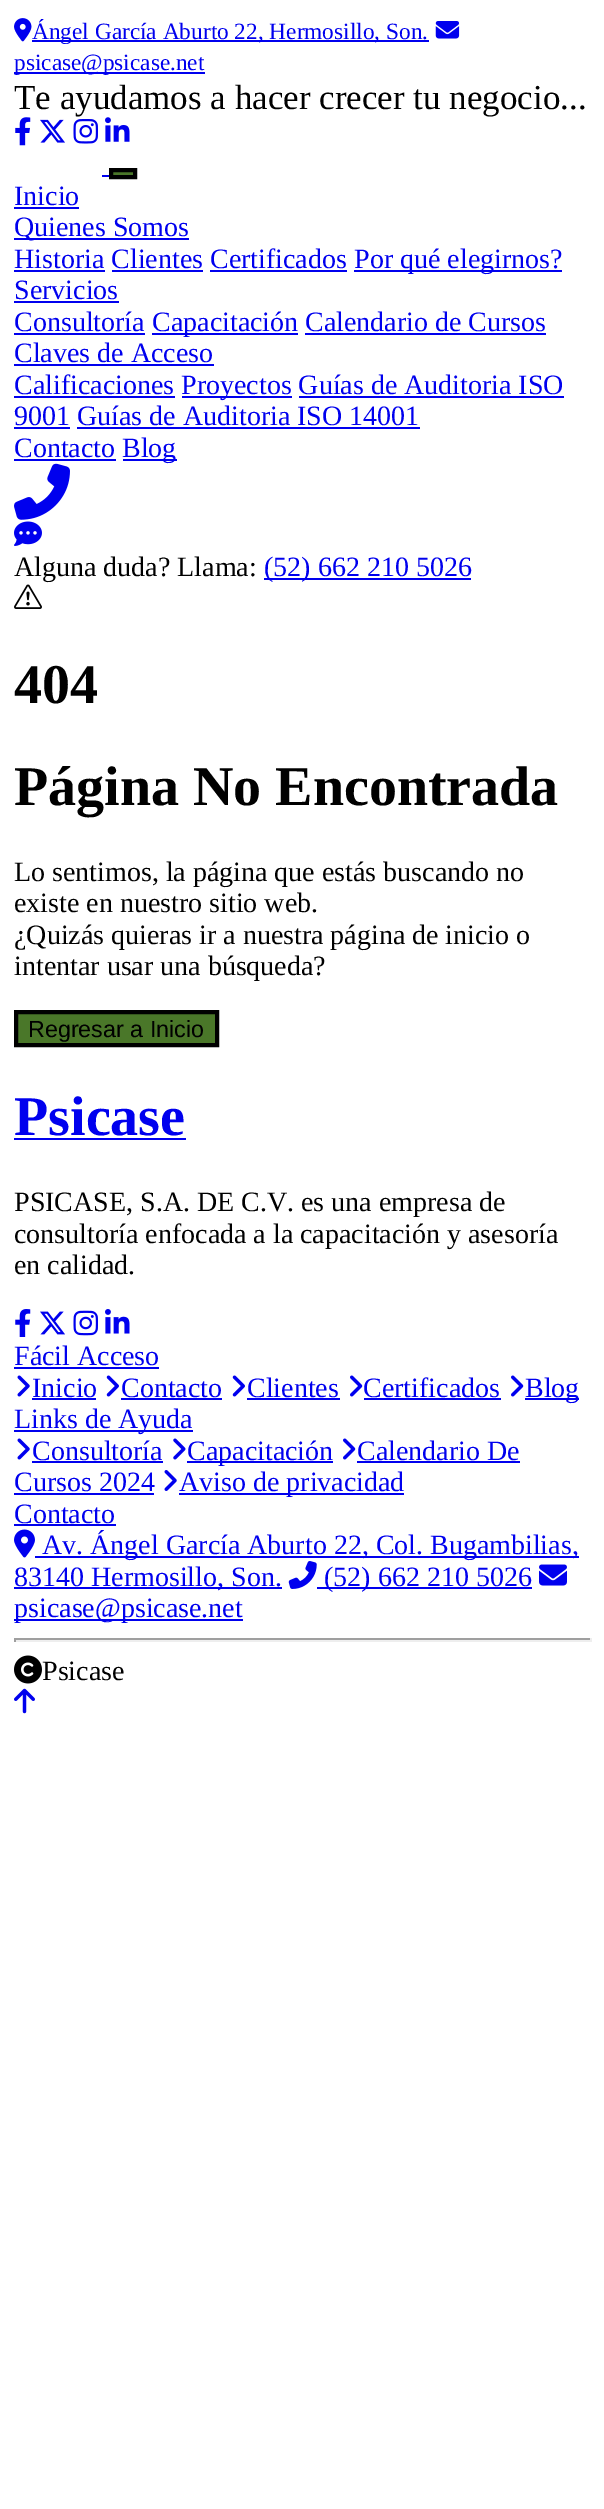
%!PS
<< /PageSize [604 2509] >> setpagedevice
/rgb { 3 { 255 div 3 1 roll } repeat setrgbcolor } def
/font { [ exch dup neg 0 0 3 -1 roll 0 0 ] selectfont } def
/picture { 5 dict begin { /h /w /y /x /name } { exch def } forall
  gsave x y translate w h scale
  w h 8 [w 0 0 h 0 0] name (r) file false 3 colorimage grestore end } def
0 2509 translate 1 -1 scale
4 setmiterlimit
255 255 255 rgb
0 0 604 2509 rectfill
(img/1.rgb) 14 18 18 24 picture
0 0 238 rgb
32 40 397 2 rectfill
(img/2.rgb) 435 21 25 18 picture
14 72 191 2 rectfill
(img/3.rgb) 15 117 16 29 picture
(img/4.rgb) 40 119 25 24 picture
(img/5.rgb) 73 119 25 25 picture
(img/6.rgb) 105 117 25 25 picture
102 175 7 2 rectfill
74 119 41 rgb
111 170 moveto 135 170 lineto 135 177 lineto 111 177 lineto closepath gsave fill grestore
0 0 0 rgb
4 setlinewidth
stroke
[
  [14 207 65 2 0 0 238]
  [14 238 175 2 0 0 238]
  [14 270 91 2 0 0 238]
  [354 270 208 2 0 0 238]
  [112 270 91 2 0 0 238]
  [210 270 137 2 0 0 238]
  [14 301 105 2 0 0 238]
  [14 333 131 2 0 0 238]
  [152 333 146 2 0 0 238]
  [305 333 241 2 0 0 238]
  [14 364 200 2 0 0 238]
  [14 396 161 2 0 0 238]
  [182 396 110 2 0 0 238]
  [299 396 265 2 0 0 238]
  [14 427 56 2 0 0 238]
  [77 427 343 2 0 0 238]
  [14 459 102 2 0 0 238]
  [123 459 54 2 0 0 238]
] { aload pop rgb rectfill } forall
(img/7.rgb) 14 463 56 57 picture
(img/8.rgb) 14 521 28 25 picture
264 578 207 2 rectfill
(img/9.rgb) 14 584 28 25 picture
74 119 41 rgb
16 1012 moveto 217 1012 lineto 217 1045 lineto 16 1045 lineto closepath gsave fill grestore
0 0 0 rgb
stroke
0 0 238 rgb
14 1138 172 2 rectfill
(img/10.rgb) 15 1309 16 28 picture
(img/11.rgb) 40 1311 25 24 picture
(img/12.rgb) 73 1310 25 26 picture
(img/13.rgb) 105 1309 25 25 picture
14 1367 145 2 rectfill
(img/14.rgb) 17 1375 13 22 picture
32 1398 64 2 rectfill
(img/15.rgb) 106 1375 13 22 picture
121 1398 101 2 rectfill
(img/15.rgb) 232 1375 13 22 picture
247 1398 93 2 rectfill
(img/16.rgb) 350 1375 13 22 picture
364 1398 137 2 rectfill
(img/16.rgb) 511 1375 13 22 picture
525 1398 54 2 rectfill
14 1430 179 2 rectfill
(img/16.rgb) 343 1438 13 22 picture
357 1461 163 2 rectfill
14 1493 140 2 rectfill
(img/14.rgb) 17 1438 13 22 picture
32 1461 131 2 rectfill
(img/17.rgb) 173 1438 13 22 picture
187 1461 146 2 rectfill
(img/18.rgb) 164 1470 13 21 picture
179 1493 225 2 rectfill
14 1524 102 2 rectfill
(img/19.rgb) 14 1529 21 29 picture
35 1556 544 2 rectfill
14 1587 268 2 rectfill
(img/20.rgb) 288 1561 29 28 picture
317 1587 215 2 rectfill
(img/21.rgb) 539 1564 28 22 picture
[
  [14 1619 229 2 0 0 238]
  [14 1638 578 2 159 159 159]
  [590 1638 2 4 238 238 238]
  [14 1640 578 2 238 238 238]
  [14 1638 2 4 159 159 159]
] { aload pop rgb rectfill } forall
(img/22.rgb) 14 1655 28 29 picture
(img/23.rgb) 14 1688 21 26 picture
/LiberationSerif-Regular 23.3 font
0 0 238 rgb
32 39 moveto (Ángel García Aburto 22, Hermosillo, Son.) show
14 70 moveto (psicase@psicase.net) show
/LiberationSerif-Regular 35 font
0 0 0 rgb
14 109 moveto (Te ayudamos a hacer crecer tu negocio...) show
/LiberationSerif-Regular 28 font
0 0 238 rgb
[
  [(Inicio) 14 205]
  [(Quienes Somos) 14 236]
  [(Historia Clientes Certificados) 14 268]
  [(Por qué elegirnos?) 354 268]
  [(Servicios) 14 299]
  [(Consultoría) 14 331]
  [(Capacitación Calendario de Cursos) 152 331]
  [(Claves de Acceso) 14 362]
  [(Calificaciones) 14 394]
  [(Proyectos Guías de Auditoria ISO) 181 394]
  [(9001 Guías de Auditoria ISO 14001) 14 425]
  [(Contacto) 14 457]
  [(Blog) 122 457]
] { aload pop moveto show } forall
0 0 0 rgb
14 576 moveto (Alguna duda? Llama:) show
0 0 238 rgb
264 576 moveto (\(52\) 662 210 5026) show
/LiberationSerif-Bold 56 font
0 0 0 rgb
14 703 moveto (404) show
14 805 moveto (Página No Encontrada) show
/LiberationSerif-Regular 28 font
[
  [(Lo sentimos, la página que estás buscando no) 14 881]
  [(existe en nuestro sitio web.) 14 912]
  [(¿Quizás quieras ir a nuestra página de inicio o) 14 944]
  [(intentar usar una búsqueda?) 14 975]
] { aload pop moveto show } forall
/LiberationSans-Regular 23.3 font
28 1037 moveto (Regresar a Inicio) show
/LiberationSerif-Bold 56 font
0 0 238 rgb
14 1135 moveto (Psicase) show
/LiberationSerif-Regular 28 font
0 0 0 rgb
[
  [(PSICASE, S.A. DE C.V. es una empresa de) 14 1211]
  [(consultoría enfocada a la capacitación y asesoría) 14 1243]
  [(en calidad.) 14 1274]
] { aload pop moveto show } forall
0 0 238 rgb
[
  [(Fácil Acceso) 14 1365]
  [(Inicio) 32 1397]
  [(Contacto) 121 1397]
  [(Clientes) 247 1397]
  [(Certificados) 363 1397]
  [(Blog) 525 1397]
  [(Links de Ayuda) 14 1428]
  [(Calendario De) 357 1460]
  [(Cursos 2024) 14 1491]
  [(Consultoría) 32 1460]
  [(Capacitación) 187 1460]
  [(Aviso de privacidad) 179 1491]
  [(Contacto) 14 1523]
  [(Av. Ángel García Aburto 22, Col. Bugambilias,) 42 1554]
  [(83140 Hermosillo, Son.) 14 1586]
  [(\(52\) 662 210 5026) 324 1586]
  [(psicase@psicase.net) 14 1617]
] { aload pop moveto show } forall
0 0 0 rgb
42 1680 moveto (Psicase) show
showpage
